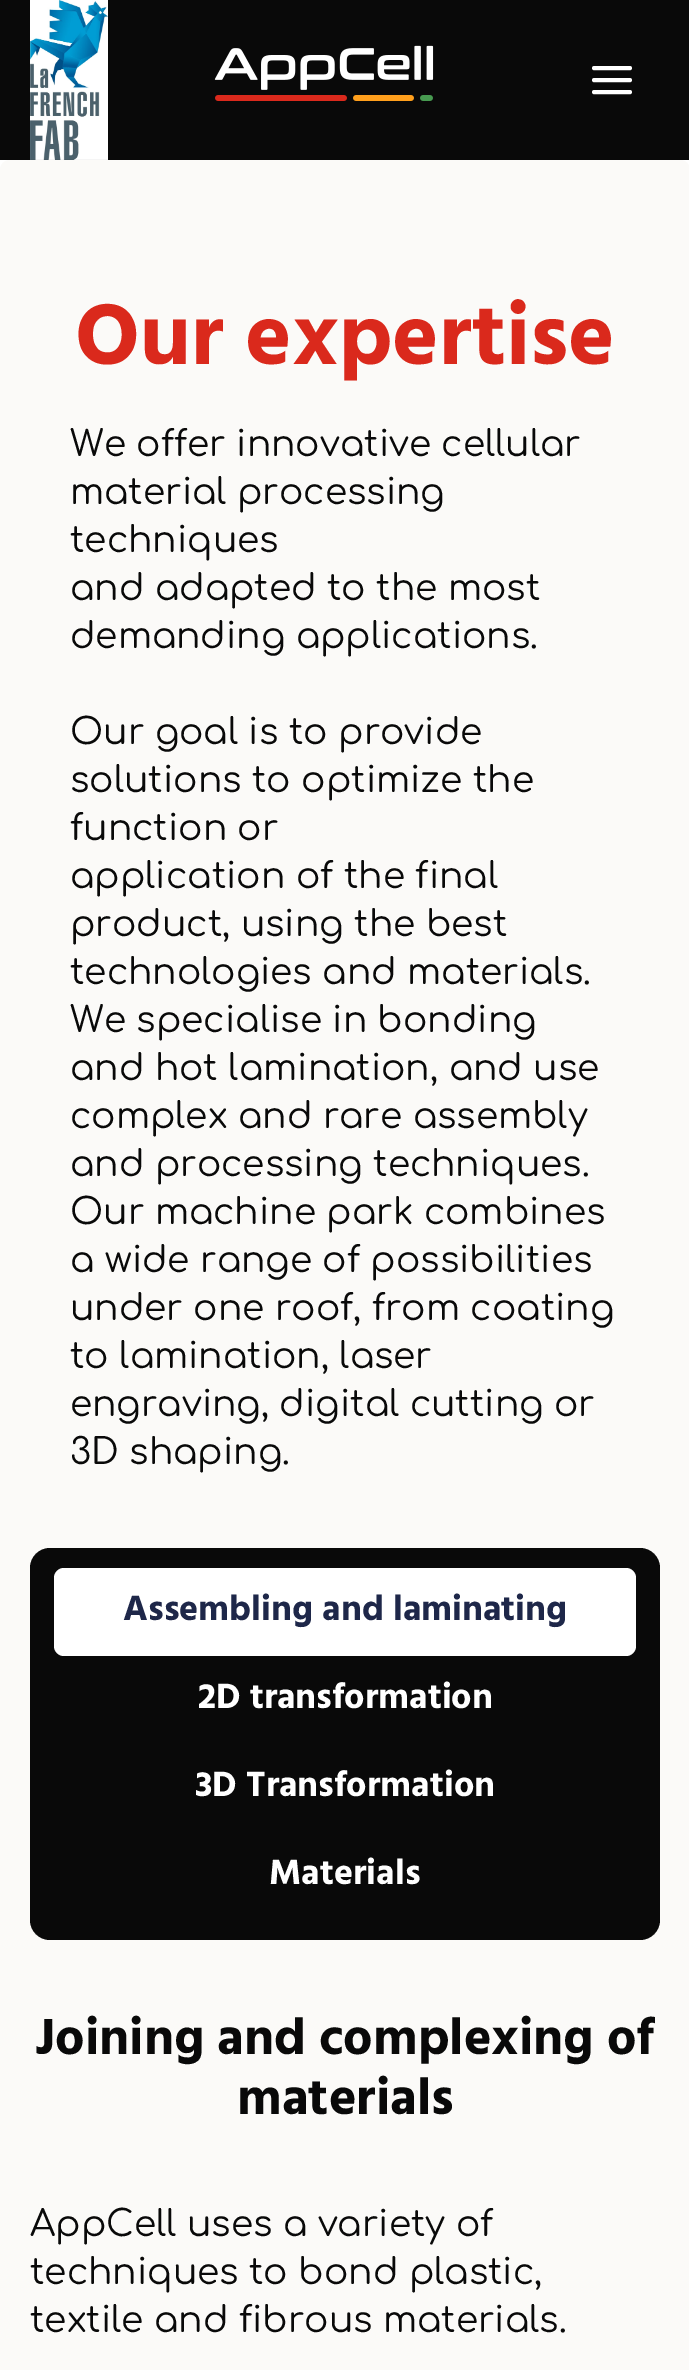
%!PS
<< /PageSize [689 2370] >> setpagedevice
/rgb { 3 { 255 div 3 1 roll } repeat setrgbcolor } def
/font { [ exch dup neg 0 0 3 -1 roll 0 0 ] selectfont } def
/roundrect { 5 dict begin { /r /h /w /y /x } { exch def } forall
  x r add y moveto x w add y 2 copy h add r arct x w add y h add x 1 index r arct
  x y h add x y r arct x y 2 copy exch w add exch r arct closepath end } def
/picture { 5 dict begin { /h /w /y /x /name } { exch def } forall
  gsave x y translate w h scale
  w h 8 [w 0 0 h 0 0] name (r) file false 3 colorimage grestore end } def
0 2370 translate 1 -1 scale
4 setmiterlimit
255 255 255 rgb
0 0 689 2370 rectfill
9 9 9 rgb
0 0 689 160 rectfill
(img/1.rgb) 30 0 78 160 picture
(img/2.rgb) 214 45 220 56 picture
255 255 255 rgb
4 setlinewidth
1 setlinecap
1 setlinejoin
594 80 moveto 630 80 lineto 594 68 moveto 630 68 lineto 594 92 moveto 630 92 lineto stroke
251 250 248 rgb
10 160 moveto 680 160 lineto 685.5 160 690 164.5 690 170 curveto 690 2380 lineto 0 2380 lineto 0 170 lineto 0 164.5 4.5 160 10 160 curveto closepath fill
9 9 9 rgb
30 1548 630 392 20 roundrect fill
255 255 255 rgb
54 1568 582 88 10 roundrect fill
/Hind-Bold 88 font
218 41 28 rgb
75 364 moveto (Our expertise) show
/Comfortaa-Regular 36 font
9 9 9 rgb
[
  [(We offer innovative cellular) 70 456]
  [(material processing) 70 504]
  [(techniques) 70 552]
  [(and adapted to the most) 70 600]
  [(demanding applications.) 70 648]
  [(Our goal is to provide) 70 744]
  [(solutions to optimize the) 70 792]
  [(function or) 70 840]
  [(application of the final) 70 888]
  [(product, using the best) 70 936]
  [(technologies and materials.) 70 984]
  [(We specialise in bonding) 70 1032]
  [(and hot lamination, and use) 70 1080]
  [(complex and rare assembly) 70 1128]
  [(and processing techniques.) 70 1176]
  [(Our machine park combines) 70 1224]
  [(a wide range of possibilities) 70 1272]
  [(under one roof, from coating) 70 1320]
  [(to lamination, laser) 70 1368]
  [(engraving, digital cutting or) 70 1416]
  [(3D shaping.) 70 1464]
] { aload pop moveto show } forall
/Hind-Bold 36 font
30 39 73 rgb
123 1620 moveto (Assembling and laminating) show
255 255 255 rgb
[
  [(2D transformation) 198 1708]
  [(3D Transformation) 195 1796]
  [(Materials) 269 1884]
] { aload pop moveto show } forall
/Hind-Bold 52 font
9 9 9 rgb
35 2054 moveto (Joining and complexing of) show
237 2114 moveto (materials) show
/Comfortaa-Regular 36 font
[
  [(AppCell uses a variety of) 30 2236]
  [(techniques to bond plastic,) 30 2284]
  [(textile and fibrous materials.) 30 2332]
] { aload pop moveto show } forall
showpage
